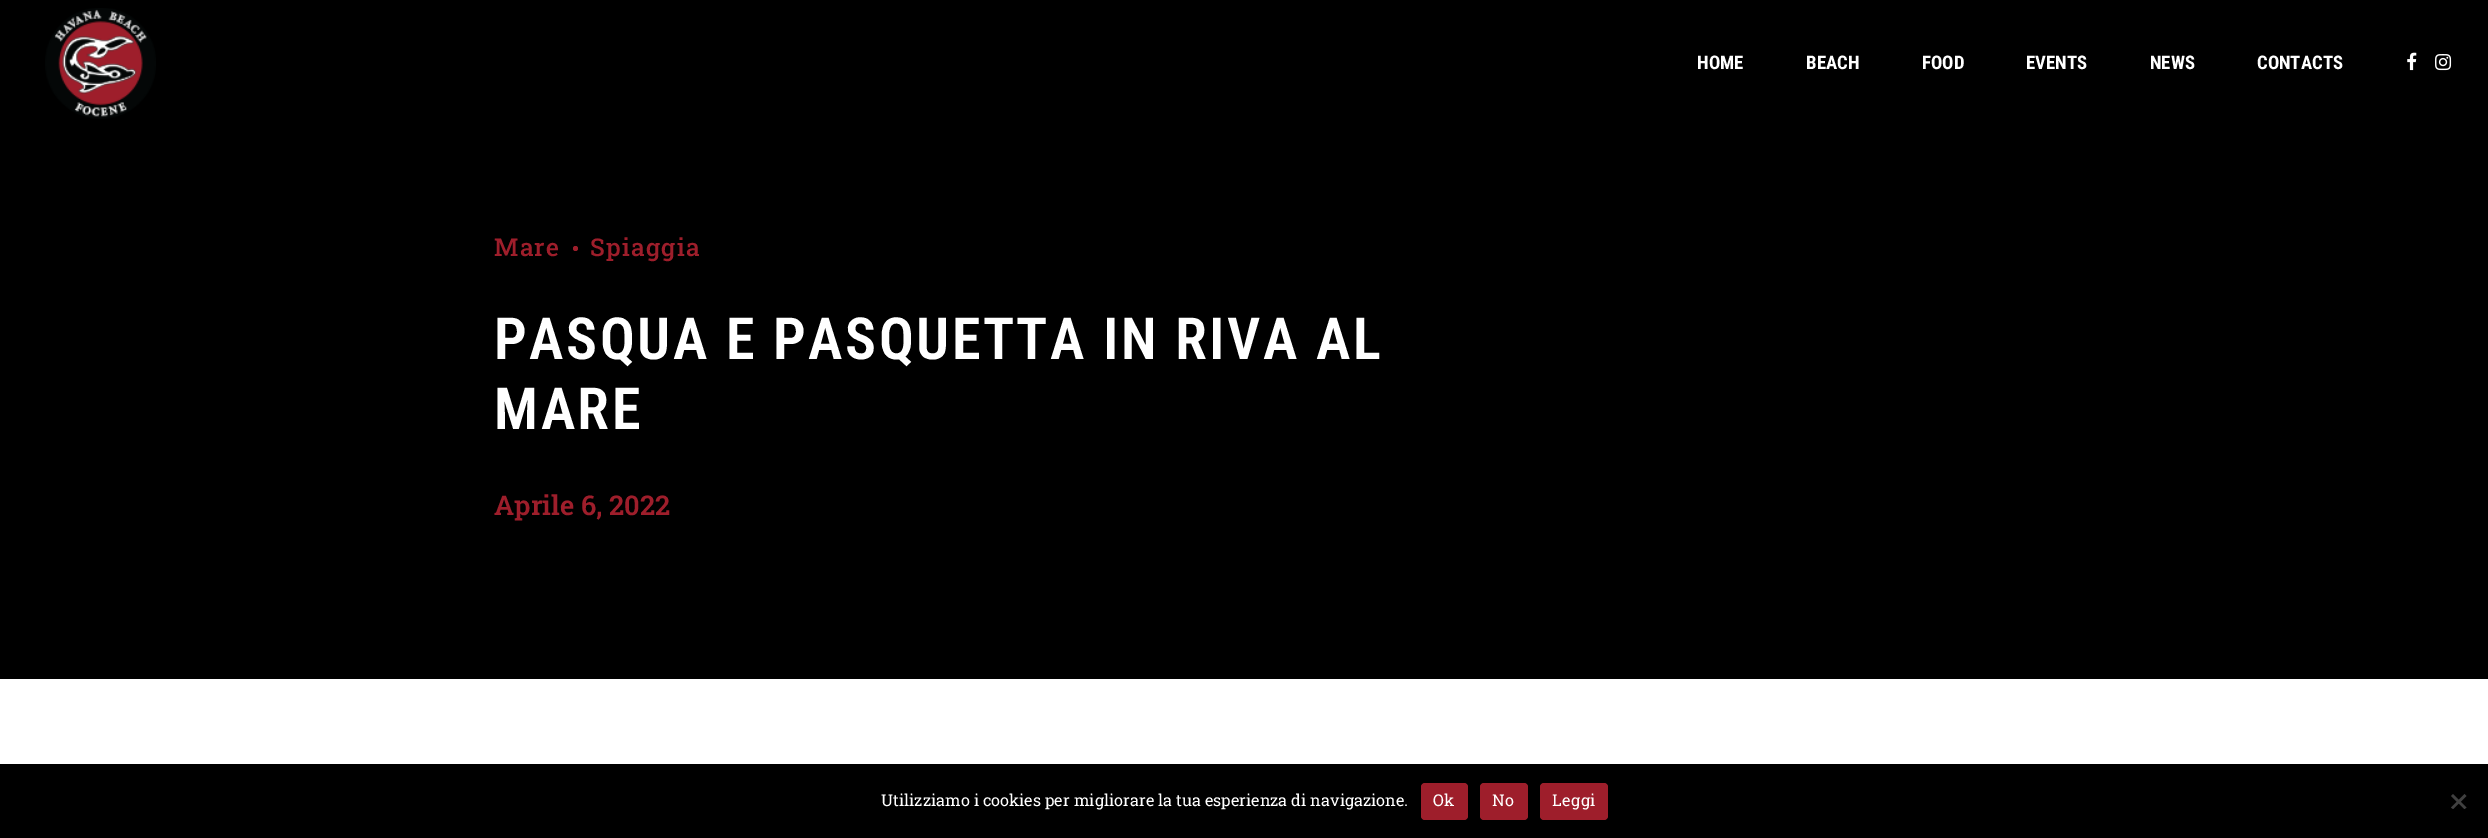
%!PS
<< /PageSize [2488 838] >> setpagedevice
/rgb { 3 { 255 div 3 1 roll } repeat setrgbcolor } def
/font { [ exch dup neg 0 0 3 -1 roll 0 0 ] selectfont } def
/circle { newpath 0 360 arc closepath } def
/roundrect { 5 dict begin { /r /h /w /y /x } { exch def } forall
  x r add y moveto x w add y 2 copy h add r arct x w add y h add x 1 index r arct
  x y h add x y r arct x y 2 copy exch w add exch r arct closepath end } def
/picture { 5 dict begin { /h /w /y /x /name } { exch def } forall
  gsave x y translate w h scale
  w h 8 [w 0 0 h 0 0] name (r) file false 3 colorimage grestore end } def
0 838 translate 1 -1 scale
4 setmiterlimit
255 255 255 rgb
0 0 2488 838 rectfill
0 0 0 rgb
0 0 2488 679 rectfill
(img/1.rgb) 45 8 111 111 picture
(img/2.rgb) 2407 52 10 19 picture
(img/3.rgb) 2435 54 17 17 picture
158 30 43 rgb
575.5 248.5 2.5 circle fill
0 0 0 rgb
0 764 2488 74 rectfill
158 30 43 rgb
1421 783 47 37 4 roundrect fill
1480 783 48 37 4 roundrect fill
1540 783 68 37 4 roundrect fill
64 64 64 rgb
2464.5 794 moveto 2466.5 796 lineto 2453 809 lineto 2451 807.5 lineto closepath fill
2451 796 moveto 2453 794 lineto 2466.5 807.5 lineto 2464.5 809 lineto closepath fill
/RobotoCondensed-Bold 18.75 font
255 255 255 rgb
[
  [(HOME) 1697 69]
  [(BEACH) 1806 69]
  [(FOOD) 1922 69]
  [(EVENTS) 2026 69]
  [(NEWS) 2150 69]
  [(CONTACTS) 2257 69]
] { aload pop moveto show } forall
/RobotoSlab-Medium 24.5 font
158 30 43 rgb
494 256 moveto 1.25 0 (Mare) ashow
590 256 moveto 1.25 0 (Spiaggia) ashow
/RobotoCondensed-SemiBold 58.1 font
255 255 255 rgb
494 359 moveto 2.5 0 (PASQUA E PASQUETTA IN RIVA AL) ashow
494 429 moveto 2.5 0 (MARE) ashow
/RobotoSlab-SemiBold 27.25 font
158 30 43 rgb
494 515 moveto (Aprile 6, 2022) show
/RobotoSlab-Regular 16.25 font
255 255 255 rgb
881 806 moveto (Utilizziamo i cookies per migliorare la tua esperienza di navigazione.) show
1433 806 moveto 0.5 0 (Ok) ashow
1492 806 moveto 0.5 0 (No) ashow
1552 806 moveto 0.5 0 (Leggi) ashow
showpage
